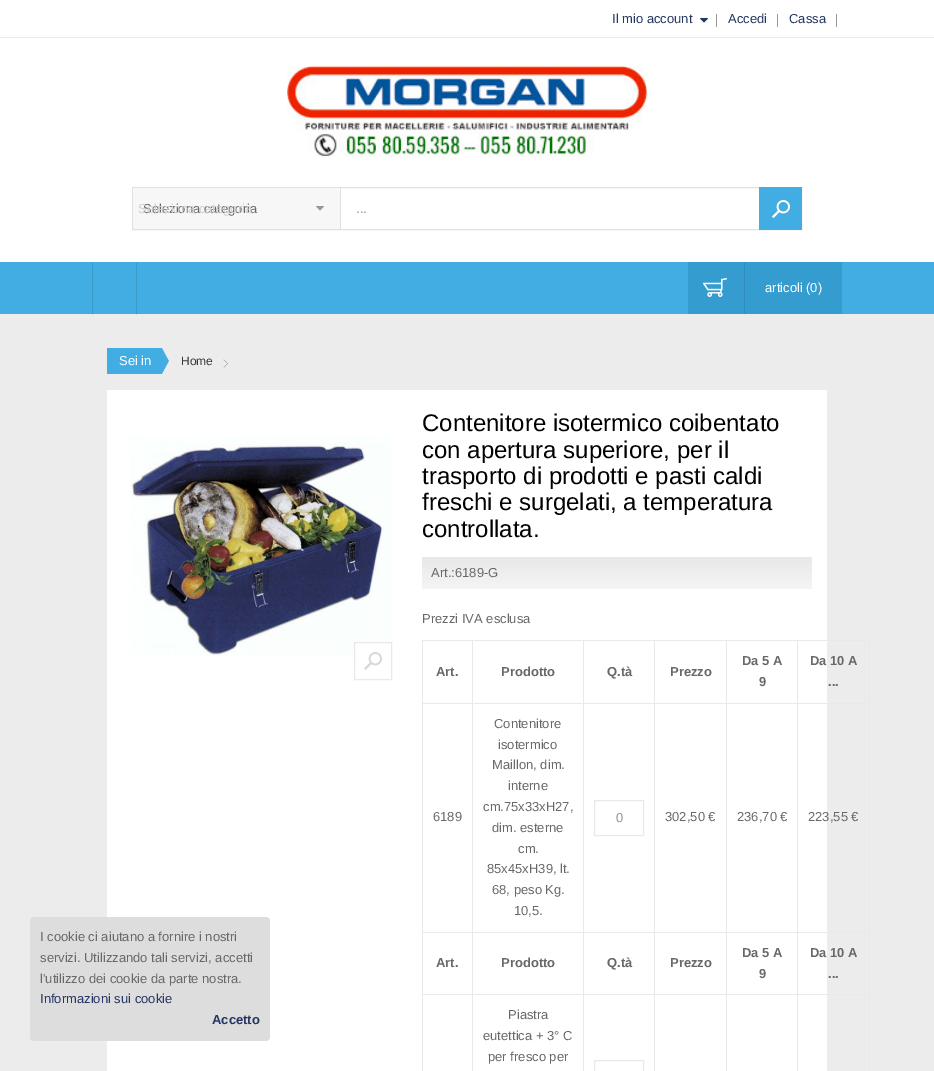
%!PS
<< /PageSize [934 1071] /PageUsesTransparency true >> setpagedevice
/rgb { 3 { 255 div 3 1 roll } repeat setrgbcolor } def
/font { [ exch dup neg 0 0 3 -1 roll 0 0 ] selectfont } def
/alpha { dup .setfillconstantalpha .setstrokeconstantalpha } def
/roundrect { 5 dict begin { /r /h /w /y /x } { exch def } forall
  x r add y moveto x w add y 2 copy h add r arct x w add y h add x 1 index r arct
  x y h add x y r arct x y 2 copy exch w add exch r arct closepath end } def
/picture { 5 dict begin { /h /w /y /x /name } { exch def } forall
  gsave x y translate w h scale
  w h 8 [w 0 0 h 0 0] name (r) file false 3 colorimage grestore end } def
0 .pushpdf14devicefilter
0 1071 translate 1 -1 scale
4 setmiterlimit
237 236 236 rgb
0 0 934 1071 rectfill
255 255 255 rgb
0 0 934 262 rectfill
234 234 234 rgb
0 37 934 1 rectfill
(img/1.rgb) 700 18 8 5 picture
[
  [716 14 1 13 153 153 153]
  [777 14 1 13 153 153 153]
  [836 14 1 13 153 153 153]
] { aload pop rgb rectfill } forall
(img/2.rgb) 287 66 360 91 picture
225 225 225 rgb
132.5 187.5 669 42 rectstroke
247 247 247 rgb
133 188 207 41 rectfill
225 225 225 rgb
340 188 1 41 rectfill
(img/3.rgb) 316 206 8 5 picture
65 173 226 rgb
759 187 43 43 rectfill
(img/4.rgb) 772 200 18 18 picture
0 262 934 52 rectfill
53 156 207 rgb
688 262 154 52 rectfill
(img/5.rgb) 703 278 24 19 picture
48 140 186 rgb
744 262 1 52 rectfill
0.1 alpha
0 0 0 rgb
137 262 moveto 137 315 lineto 136 314 lineto 136 263 lineto closepath 92 315 moveto 92 262 lineto 93 263 lineto 93 314 lineto closepath fill
1 alpha
65 173 226 rgb
107 348 53 26 rectfill
(img/6.rgb) 160 348 9 26 picture
(img/7.rgb) 223 359 5 9 picture
255 255 255 rgb
107 390 720 681 rectfill
(img/8.rgb) 130 436 262 221 picture
355 643 36 14 rectfill
(img/9.rgb) 364 652 18 18 picture
233 233 233 rgb
354.5 642.5 37 37 rectstroke
gsave 422 557 390 32 3 roundrect clip newpath
<< /ShadingType 2 /ColorSpace /DeviceRGB /Coords [617 557 617 589] /Extend [true true] /Function << /FunctionType 2 /Domain [0 1] /C0 [0.91 0.91 0.91] /C1 [0.961 0.961 0.961] /N 1 >> >> shfill grestore
[
  [422 640 448 1 233 233 233]
  [869 640 1 64 233 233 233]
  [422 703 448 1 233 233 233]
  [422 932 448 1 233 233 233]
  [869 932 1 63 233 233 233]
  [422 994 448 1 233 233 233]
  [422 932 1 139 233 233 233]
  [422 640 1 293 233 233 233]
  [869 703 1 230 233 233 233]
] { aload pop rgb rectfill } forall
594.5 800.5 49 35 rectstroke
[
  [869 994 1 77 233 233 233]
  [472 640 1 431 233 233 233]
  [583 640 1 431 233 233 233]
] { aload pop rgb rectfill } forall
594.5 1060.5 49 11 rectstroke
[
  [654 640 1 431 233 233 233]
  [726 640 1 431 233 233 233]
  [797 640 1 431 233 233 233]
] { aload pop rgb rectfill } forall
221 221 221 rgb
30 917 240 124 4 roundrect fill
/LiberationSans-Regular 13 font
38 54 99 rgb
[
  [(Il mio account) 612 23]
  [(Accedi) 728 23]
  [(Cassa) 789 23]
] { aload pop moveto show } forall
104 104 104 rgb
143 213 moveto (Seleziona categoria) show
207 207 207 rgb
138 213 moveto (Seleziona categoria) show
144 144 144 rgb
356 213 moveto (...) show
255 255 255 rgb
765 292 moveto (articoli \(0\)) show
119 365 moveto (Sei in) show
/LiberationSans-Regular 12 font
57 57 57 rgb
181 365 moveto (Home) show
/LiberationSans-Regular 24 font
0 0 0 rgb
[
  [(Contenitore isotermico coibentato) 422 431]
  [(con apertura superiore, per il) 422 458]
  [(trasporto di prodotti e pasti caldi) 422 484]
  [(freschi e surgelati, a temperatura) 422 510]
  [(controllata.) 422 537]
] { aload pop moveto show } forall
/LiberationSans-Regular 13 font
104 104 104 rgb
431 577 moveto (Art.:6189-G) show
422 623 moveto (Prezzi IVA esclusa) show
/LiberationSans-Bold 13 font
[
  [(Art.) 436 676]
  [(Prodotto) 501 676]
  [(Q.tà) 607 676]
  [(Prezzo) 670 676]
  [(Da 5 A) 742 665]
  [(9) 759 686]
  [(Da 10 A) 810 665]
  [(...) 828 686]
] { aload pop moveto show } forall
/LiberationSans-Regular 13 font
[
  [(6189) 433 821]
  [(Contenitore) 494 728]
  [(isotermico) 498 749]
  [(Maillon, dim.) 492 769]
  [(interne) 508 790]
  [(cm.75x33xH27,) 483 811]
  [(dim. esterne) 492 832]
  [(cm.) 518 853]
  [(85x45xH39, lt.) 487 873]
  [(68, peso Kg.) 492 894]
  [(10,5.) 514 915]
] { aload pop moveto show } forall
144 144 144 rgb
616 822 moveto (0) show
104 104 104 rgb
[
  [(302,50 €) 665 821]
  [(236,70 €) 737 821]
  [(223,55 €) 808 821]
] { aload pop moveto show } forall
/LiberationSans-Bold 13 font
[
  [(Art.) 436 967]
  [(Prodotto) 501 967]
  [(Q.tà) 607 967]
  [(Prezzo) 670 967]
  [(Da 5 A) 742 957]
  [(9) 759 978]
  [(Da 10 A) 810 957]
  [(...) 828 978]
] { aload pop moveto show } forall
/LiberationSans-Regular 13 font
[
  [(Piastra) 508 1019]
  [(eutettica + 3° C) 483 1040]
  [(per fresco per) 488 1061]
  [(I cookie ci aiutano a fornire i nostri) 40 941]
  [(servizi. Utilizzando tali servizi, accetti) 40 962]
  [(l'utilizzo dei cookie da parte nostra.) 40 983]
] { aload pop moveto show } forall
38 54 99 rgb
40 1003 moveto (Informazioni sui cookie) show
/LiberationSans-Bold 13 font
212 1024 moveto (Accetto) show
.poppdf14devicefilter showpage
